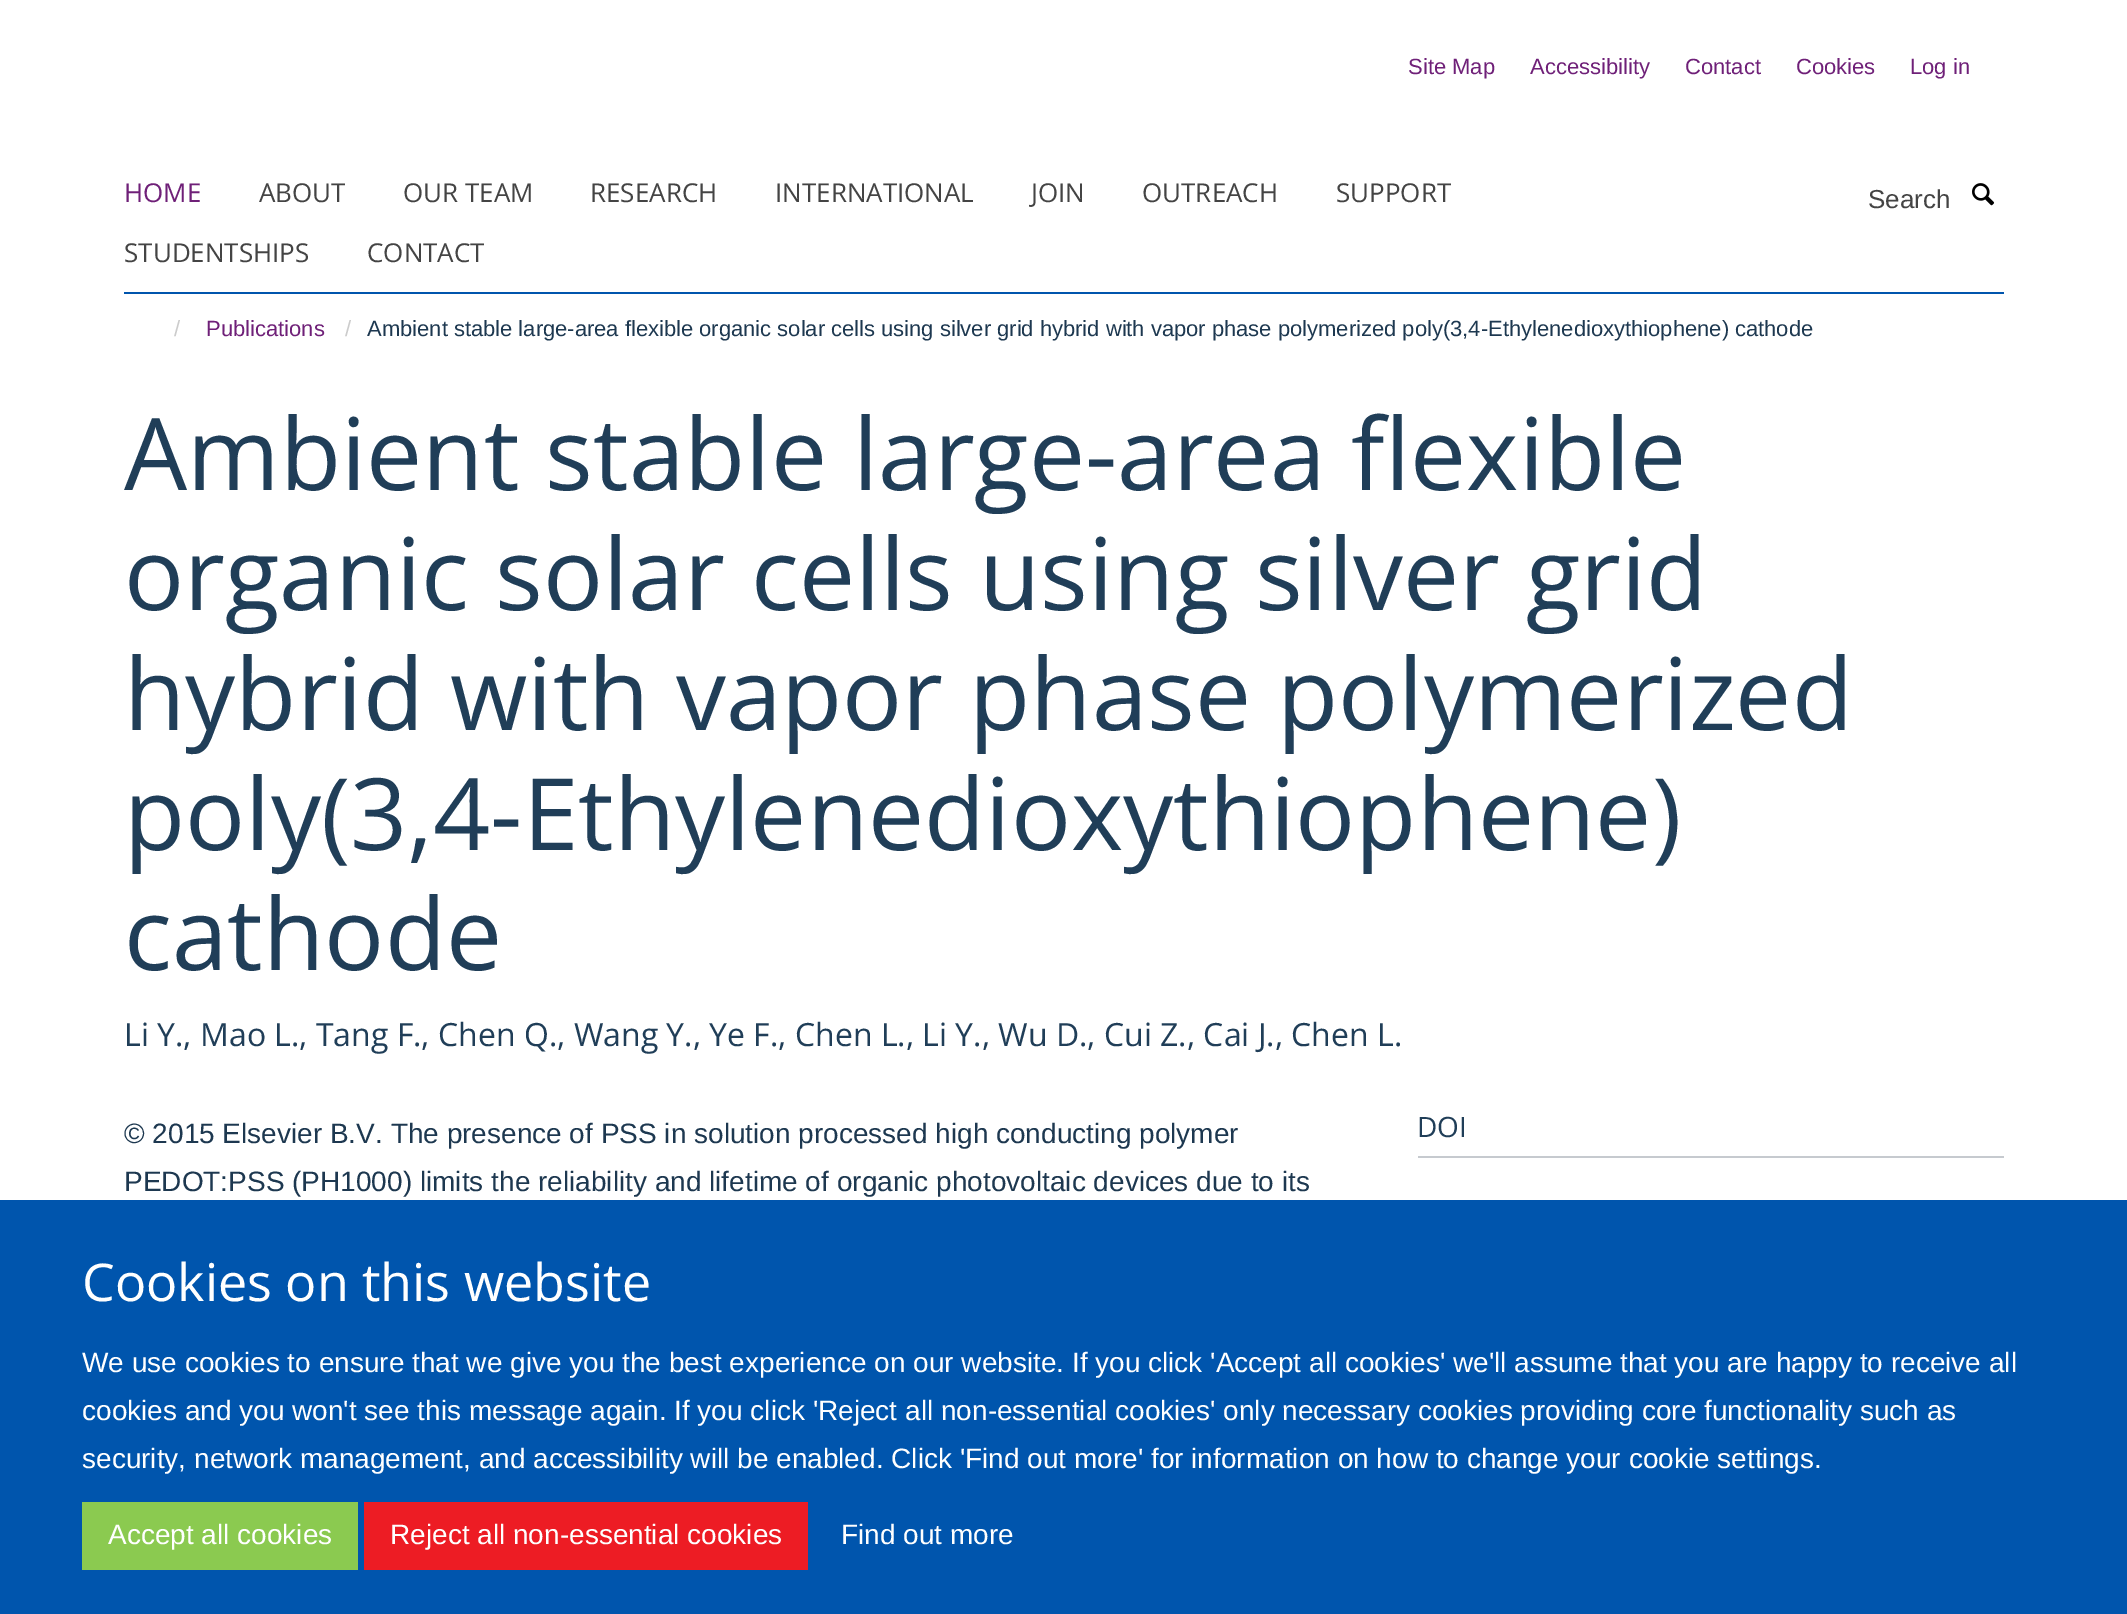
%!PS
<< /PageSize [2127 1614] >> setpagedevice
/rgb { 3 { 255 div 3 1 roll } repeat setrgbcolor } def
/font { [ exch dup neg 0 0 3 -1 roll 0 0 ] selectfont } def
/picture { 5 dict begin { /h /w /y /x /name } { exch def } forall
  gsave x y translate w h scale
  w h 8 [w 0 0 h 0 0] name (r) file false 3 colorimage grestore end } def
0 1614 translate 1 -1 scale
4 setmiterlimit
255 255 255 rgb
0 0 2127 1614 rectfill
0 85 173 rgb
124 292 1880 2 rectfill
(img/1.rgb) 1972 183 23 23 picture
[
  [1418 1156 586 2 198 202 207]
  [0 1200 2127 414 0 85 173]
  [82 1502 276 68 139 202 80]
  [364 1502 444 68 237 28 36]
] { aload pop rgb rectfill } forall
/LiberationSans-Regular 22 font
111 32 120 rgb
[
  [(Site Map) 1408 74]
  [(Accessibility) 1530 74]
  [(Contact) 1685 74]
  [(Cookies) 1796 74]
  [(Log in) 1910 74]
] { aload pop moveto show } forall
/OpenSans-Regular 26 font
124 202 moveto (HOME) show
68 68 68 rgb
[
  [(ABOUT) 259 202]
  [(OUR TEAM) 403 202]
  [(RESEARCH) 590 202]
  [(INTERNATIONAL) 775 202]
  [(JOIN) 1031 202]
  [(OUTREACH) 1142 202]
  [(SUPPORT) 1336 202]
  [(STUDENTSHIPS) 124 262]
  [(CONTACT) 367 262]
] { aload pop moveto show } forall
/LiberationSans-Regular 26 font
1868 208 moveto (Search) show
/LiberationSans-Regular 22 font
204 204 204 rgb
174 336 moveto (/) show
111 32 120 rgb
206 336 moveto (Publications) show
204 204 204 rgb
345 336 moveto (/) show
29 56 80 rgb
367 336 moveto -0.1 0 32 (Ambient stable large-area flexible organic solar cells using silver grid hybrid with vapor phase polymerized poly\(3,4-Ethylenedioxythiophene\) cathode) widthshow
/OpenSans-Regular 100 font
32 62 88 rgb
[
  [(Ambient stable large-area flexible) 124 490]
  [(organic solar cells using silver grid) 124 610]
  [(hybrid with vapor phase polymerized) 124 730]
  [(poly\(3,4-Ethylenedioxythiophene\)) 124 850]
  [(cathode) 124 970]
] { aload pop moveto show } forall
/OpenSans-Regular 32 font
124 1046 moveto (Li Y., Mao L., Tang F., Chen Q., Wang Y., Ye F., Chen L., Li Y., Wu D., Cui Z., Cai J., Chen L.) show
/LiberationSans-Regular 28 font
29 56 80 rgb
124 1143 moveto (© 2015 Elsevier B.V. The presence of PSS in solution processed high conducting polymer) show
124 1191 moveto (PEDOT:PSS \(PH1000\) limits the reliability and lifetime of organic photovoltaic devices due to its) show
/OpenSans-Regular 28 font
32 62 88 rgb
1417 1137 moveto (DOI) show
/OpenSans-Regular 52 font
255 255 255 rgb
82 1301 moveto (Cookies on this website) show
/LiberationSans-Regular 28 font
[
  [(We use cookies to ensure that we give you the best experience on our website. If you click 'Accept all cookies' we'll assume that you are happy to receive all) 82 1372]
  [(cookies and you won't see this message again. If you click 'Reject all non-essential cookies' only necessary cookies providing core functionality such as) 82 1420]
  [(security, network management, and accessibility will be enabled. Click 'Find out more' for information on how to change your cookie settings.) 82 1468]
  [(Accept all cookies) 108 1544]
  [(Reject all non-essential cookies) 390 1544]
  [(Find out more) 841 1544]
] { aload pop moveto show } forall
showpage
